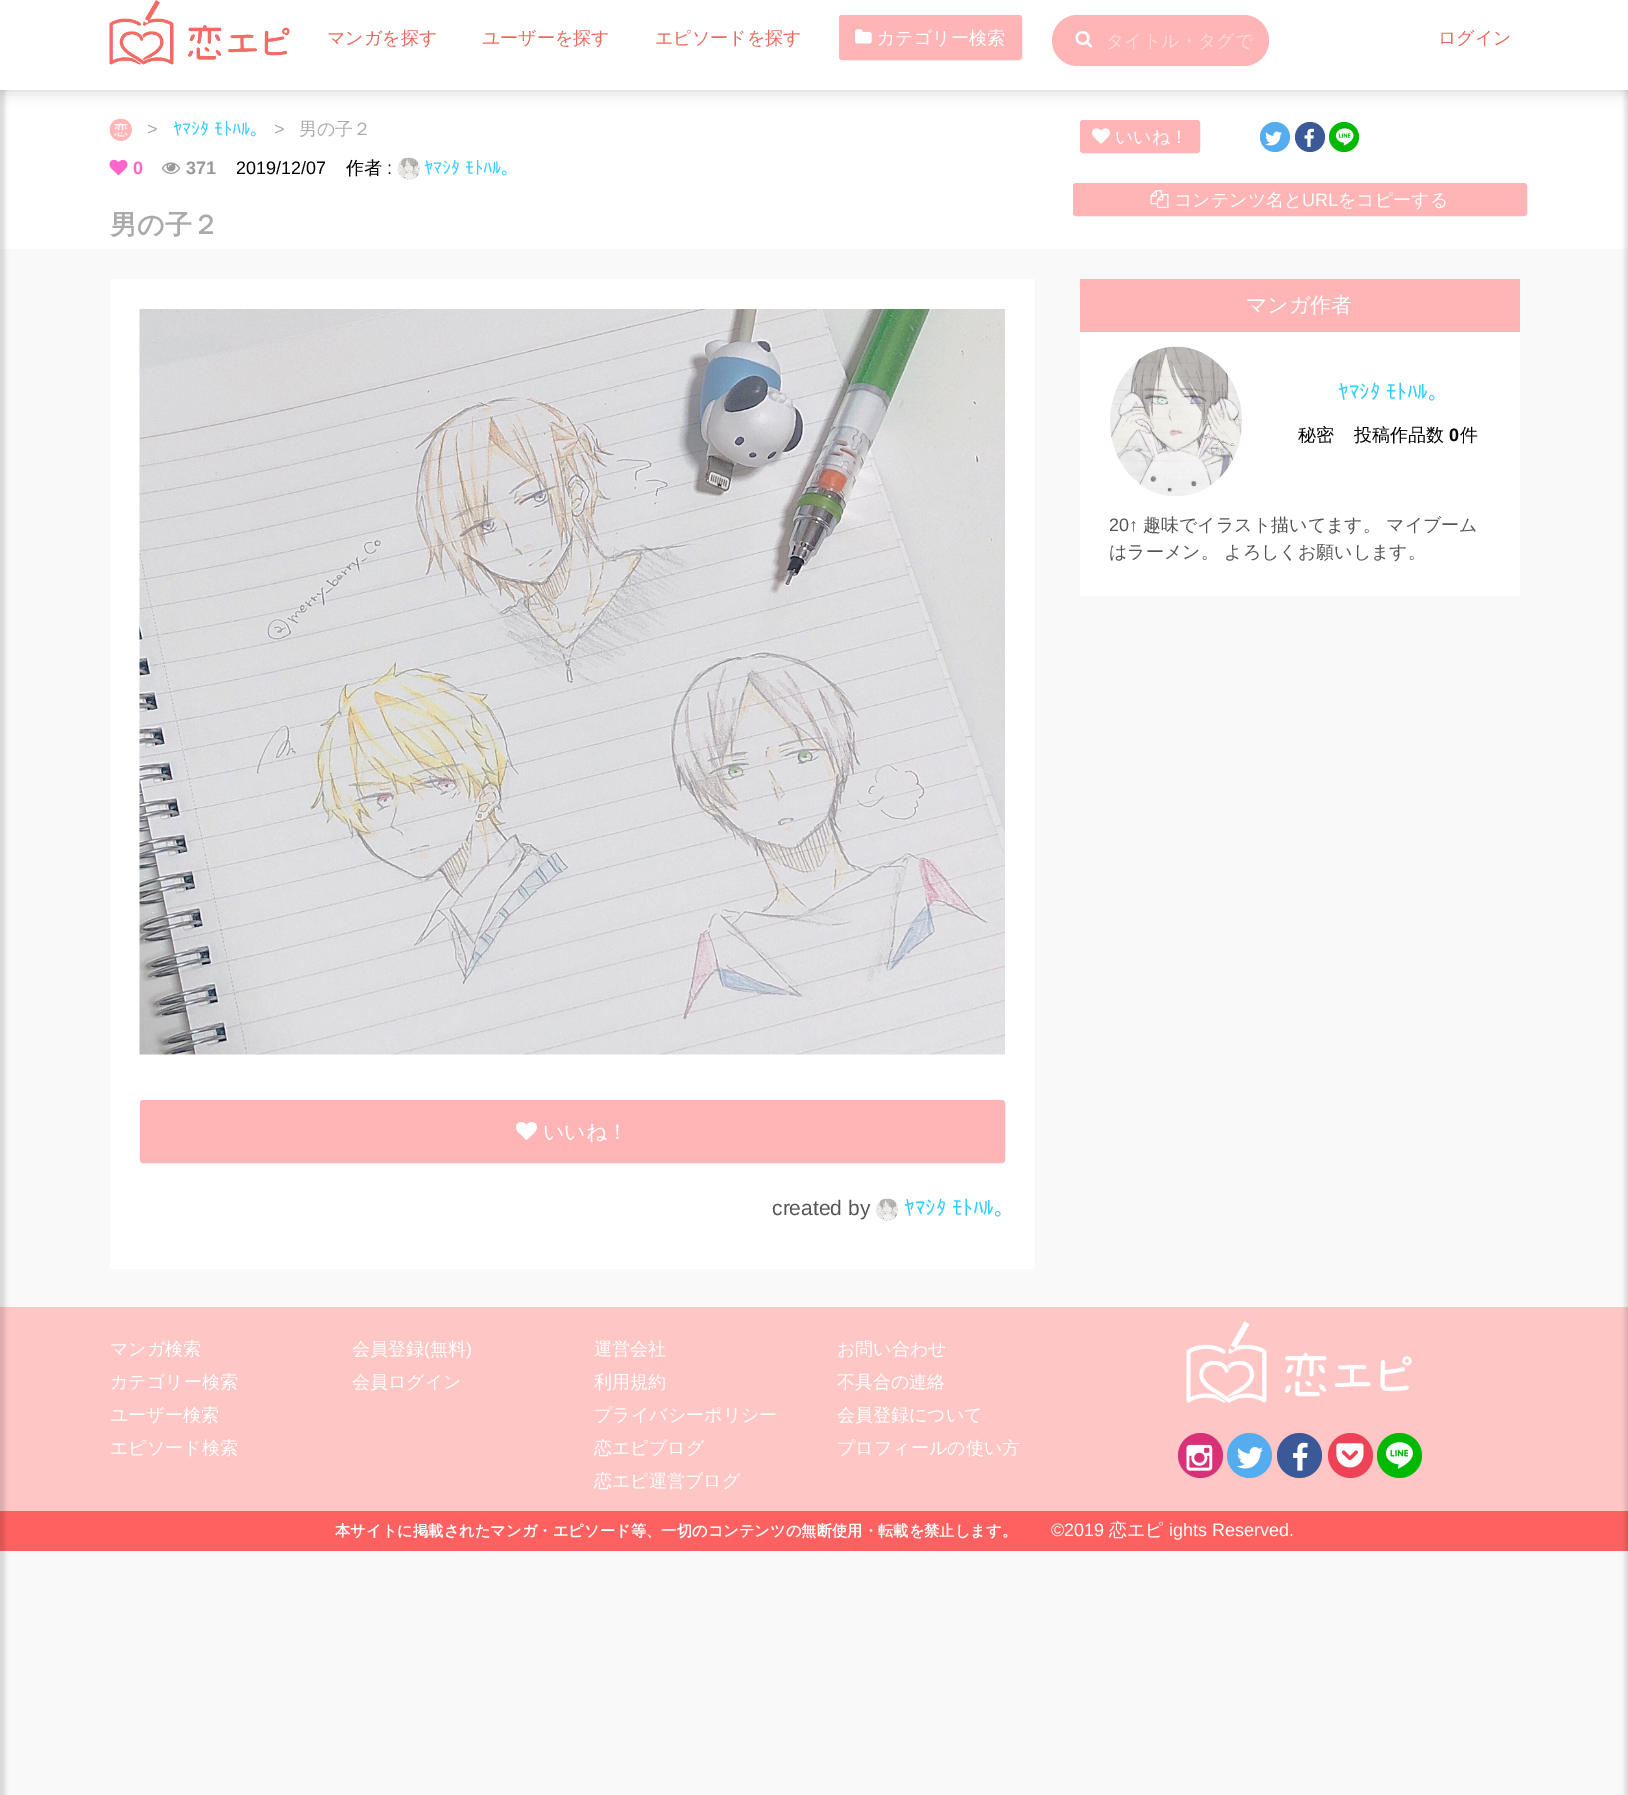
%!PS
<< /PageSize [1628 1795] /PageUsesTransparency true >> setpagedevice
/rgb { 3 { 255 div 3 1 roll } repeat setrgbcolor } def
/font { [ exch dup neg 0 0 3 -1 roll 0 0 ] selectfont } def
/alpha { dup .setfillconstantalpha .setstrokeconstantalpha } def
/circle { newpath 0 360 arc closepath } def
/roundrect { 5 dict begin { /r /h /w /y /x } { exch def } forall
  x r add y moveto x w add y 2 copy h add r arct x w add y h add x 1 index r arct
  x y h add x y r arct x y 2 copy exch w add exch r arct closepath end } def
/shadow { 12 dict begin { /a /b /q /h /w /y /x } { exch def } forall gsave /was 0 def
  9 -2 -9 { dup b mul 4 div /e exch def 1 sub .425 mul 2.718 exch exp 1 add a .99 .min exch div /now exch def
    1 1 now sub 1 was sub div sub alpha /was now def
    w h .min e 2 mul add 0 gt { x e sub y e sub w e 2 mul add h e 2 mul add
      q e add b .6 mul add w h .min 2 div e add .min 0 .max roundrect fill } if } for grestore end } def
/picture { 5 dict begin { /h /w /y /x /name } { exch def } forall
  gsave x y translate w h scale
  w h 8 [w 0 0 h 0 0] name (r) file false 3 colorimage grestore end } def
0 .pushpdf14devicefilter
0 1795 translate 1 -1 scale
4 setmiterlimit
249 249 249 rgb
0 0 1628 1795 rectfill
[
  [0 90 1628 159 255 255 255]
  [0 1307 1628 204 255 198 198]
  [0 1511 1628 40 255 97 97]
] { aload pop rgb rectfill } forall
0 0 0 rgb
-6 5 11 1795 0 2 0.13 shadow
0 0 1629 90 0 7.5 0.2 shadow
1625 5 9 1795 0 2 0.13 shadow
255 255 255 rgb
0 0 1628 90 rectfill
(img/1.rgb) 109 0 181 65 picture
255 181 181 rgb
840 16 181 43 2 roundrect gsave fill grestore
2 setlinewidth
stroke
(img/2.rgb) 855 29 17 15 picture
1052 15 217 51 25.5 roundrect fill
(img/3.rgb) 1075 30 18 18 picture
(img/4.rgb) 109 118 23 23 picture
(img/5.rgb) 109 159 19 17 picture
(img/6.rgb) 162 162 18 12 picture
(img/7.rgb) 397 157 23 23 picture
1081 121 118 31 2 roundrect gsave fill grestore
stroke
(img/8.rgb) 1092 128 18 16 picture
85 172 238 rgb
1275 137 15 circle fill
(img/9.rgb) 1265 131 17 15 picture
59 89 152 rgb
1310 137 15 circle fill
(img/10.rgb) 1304 128 10 19 picture
0 185 0 rgb
1344 137 15 circle fill
(img/11.rgb) 1335 128 19 18 picture
255 181 181 rgb
1074 184 452 31 2 roundrect gsave fill grestore
stroke
(img/12.rgb) 1150 190 19 19 picture
1080 279 440 53 rectfill
255 255 255 rgb
1080 332 440 264 rectfill
(img/13.rgb) 1110 346 132 150 picture
110 279 925 990 rectfill
(img/14.rgb) 139 309 866 746 picture
255 181 181 rgb
141 1101 863 61 2 roundrect gsave fill grestore
stroke
(img/15.rgb) 516 1122 21 18 picture
(img/16.rgb) 876 1198 23 23 picture
(img/17.rgb) 1186 1321 226 82 picture
217 49 119 rgb
1200.5 1455.5 22.5 circle fill
(img/18.rgb) 1186 1444 27 27 picture
85 172 238 rgb
1249.5 1455.5 22.5 circle fill
(img/19.rgb) 1237 1447 26 22 picture
59 89 152 rgb
1299.5 1455.5 22.5 circle fill
(img/20.rgb) 1293 1442 15 29 picture
238 66 86 rgb
1350.5 1455.5 22.5 circle fill
(img/21.rgb) 1336 1443 28 25 picture
0 185 0 rgb
1399.5 1455.5 22.5 circle fill
(img/22.rgb) 1385 1442 28 27 picture
/WenQuanYiZenHei-Medium 18 font
235 103 91 rgb
[
  [(マンガを探す) 327 44]
  [(ユーザーを探す) 482 44]
  [(エピソードを探す) 655 44]
] { aload pop moveto show } forall
255 255 255 rgb
877 44 moveto (カテゴリー検索) show
255 217 217 rgb
1106 47 moveto (タイトル・タグで) show
235 103 91 rgb
1438 44 moveto (ログイン) show
/LiberationSans-Regular 18 font
170 170 170 rgb
147 135 moveto (>) show
/IPAPGothic-Regular 18 font
51 204 255 rgb
173 135 moveto (ﾔﾏｼﾀ ﾓﾄﾊﾙ。) show
/LiberationSans-Regular 18 font
170 170 170 rgb
274 135 moveto (>) show
/WenQuanYiZenHei-Medium 18 font
299 135 moveto (男の子２) show
/LiberationSans-Bold 18 font
255 102 204 rgb
133 174 moveto (0) show
153 153 153 rgb
186 174 moveto (371) show
/LiberationSans-Regular 18 font
0 0 0 rgb
236 174 moveto (2019/12/07) show
/WenQuanYiZenHei-Medium 18 font
346 174 moveto (作者) show
/LiberationSans-Regular 18 font
387 174 moveto (:) show
/IPAPGothic-Regular 18 font
51 204 255 rgb
424 174 moveto (ﾔﾏｼﾀ ﾓﾄﾊﾙ。) show
/WenQuanYiZenHei-Bold 27 font
170 170 170 rgb
110 234 moveto (男の子２) show
/WenQuanYiZenHei-Medium 18 font
255 255 255 rgb
1115 143 moveto (いいね！) show
1174 206 moveto (コンテンツ名と) show
/LiberationSans-Regular 18 font
1302 206 moveto (URL) show
/WenQuanYiZenHei-Medium 18 font
1338 206 moveto (をコピーする) show
/WenQuanYiZenHei-Medium 21 font
1246 312 moveto (マンガ作者) show
/IPAPGothic-Regular 21 font
51 204 255 rgb
1338 399 moveto (ﾔﾏｼﾀ ﾓﾄﾊﾙ。) show
/WenQuanYiZenHei-Medium 18 font
0 0 0 rgb
1298 441 moveto (秘密) show
1354 441 moveto (投稿作品数) show
/LiberationSans-Bold 18 font
1449 441 moveto (0) show
/WenQuanYiZenHei-Medium 18 font
1460 441 moveto (件) show
/LiberationSans-Regular 18 font
85 85 85 rgb
1109 531 moveto (20↑) show
/WenQuanYiZenHei-Medium 18 font
1143 531 moveto (趣味でイラスト描いてます。 マイブーム) show
1109 558 moveto (はラーメン。 よろしくお願いします。) show
/WenQuanYiZenHei-Medium 21 font
255 255 255 rgb
543 1139 moveto (いいね！) show
/LiberationSans-Regular 21 font
85 85 85 rgb
772 1215 moveto (created by) show
/IPAPGothic-Regular 21 font
51 204 255 rgb
904 1215 moveto (ﾔﾏｼﾀ ﾓﾄﾊﾙ。) show
/WenQuanYiZenHei-Medium 18 font
255 255 255 rgb
[
  [(マンガ検索) 110 1355]
  [(カテゴリー検索) 110 1388]
  [(ユーザー検索) 110 1421]
  [(エピソード検索) 110 1454]
  [(会員登録) 352 1355]
] { aload pop moveto show } forall
/LiberationSans-Regular 18 font
424 1355 moveto (\() show
/WenQuanYiZenHei-Medium 18 font
430 1355 moveto (無料) show
/LiberationSans-Regular 18 font
466 1355 moveto (\)) show
/WenQuanYiZenHei-Medium 18 font
[
  [(会員ログイン) 352 1388]
  [(運営会社) 594 1355]
  [(利用規約) 594 1388]
  [(プライバシーポリシー) 594 1421]
  [(恋エピブログ) 594 1454]
  [(恋エピ運営ブログ) 594 1487]
  [(お問い合わせ) 837 1355]
  [(不具合の連絡) 837 1388]
  [(会員登録について) 837 1421]
  [(プロフィールの使い方) 837 1454]
] { aload pop moveto show } forall
/WenQuanYiZenHei-Bold 15.3 font
335 1536 moveto (本サイトに掲載されたマンガ・エピソード等、一切のコンテンツの無断使用・転載を禁止します。) show
/LiberationSans-Regular 18 font
1051 1536 moveto (©2019) show
/WenQuanYiZenHei-Medium 18 font
1109 1536 moveto (恋エピ) show
/LiberationSans-Regular 18 font
1169 1536 moveto (ights Reserved.) show
.poppdf14devicefilter showpage
